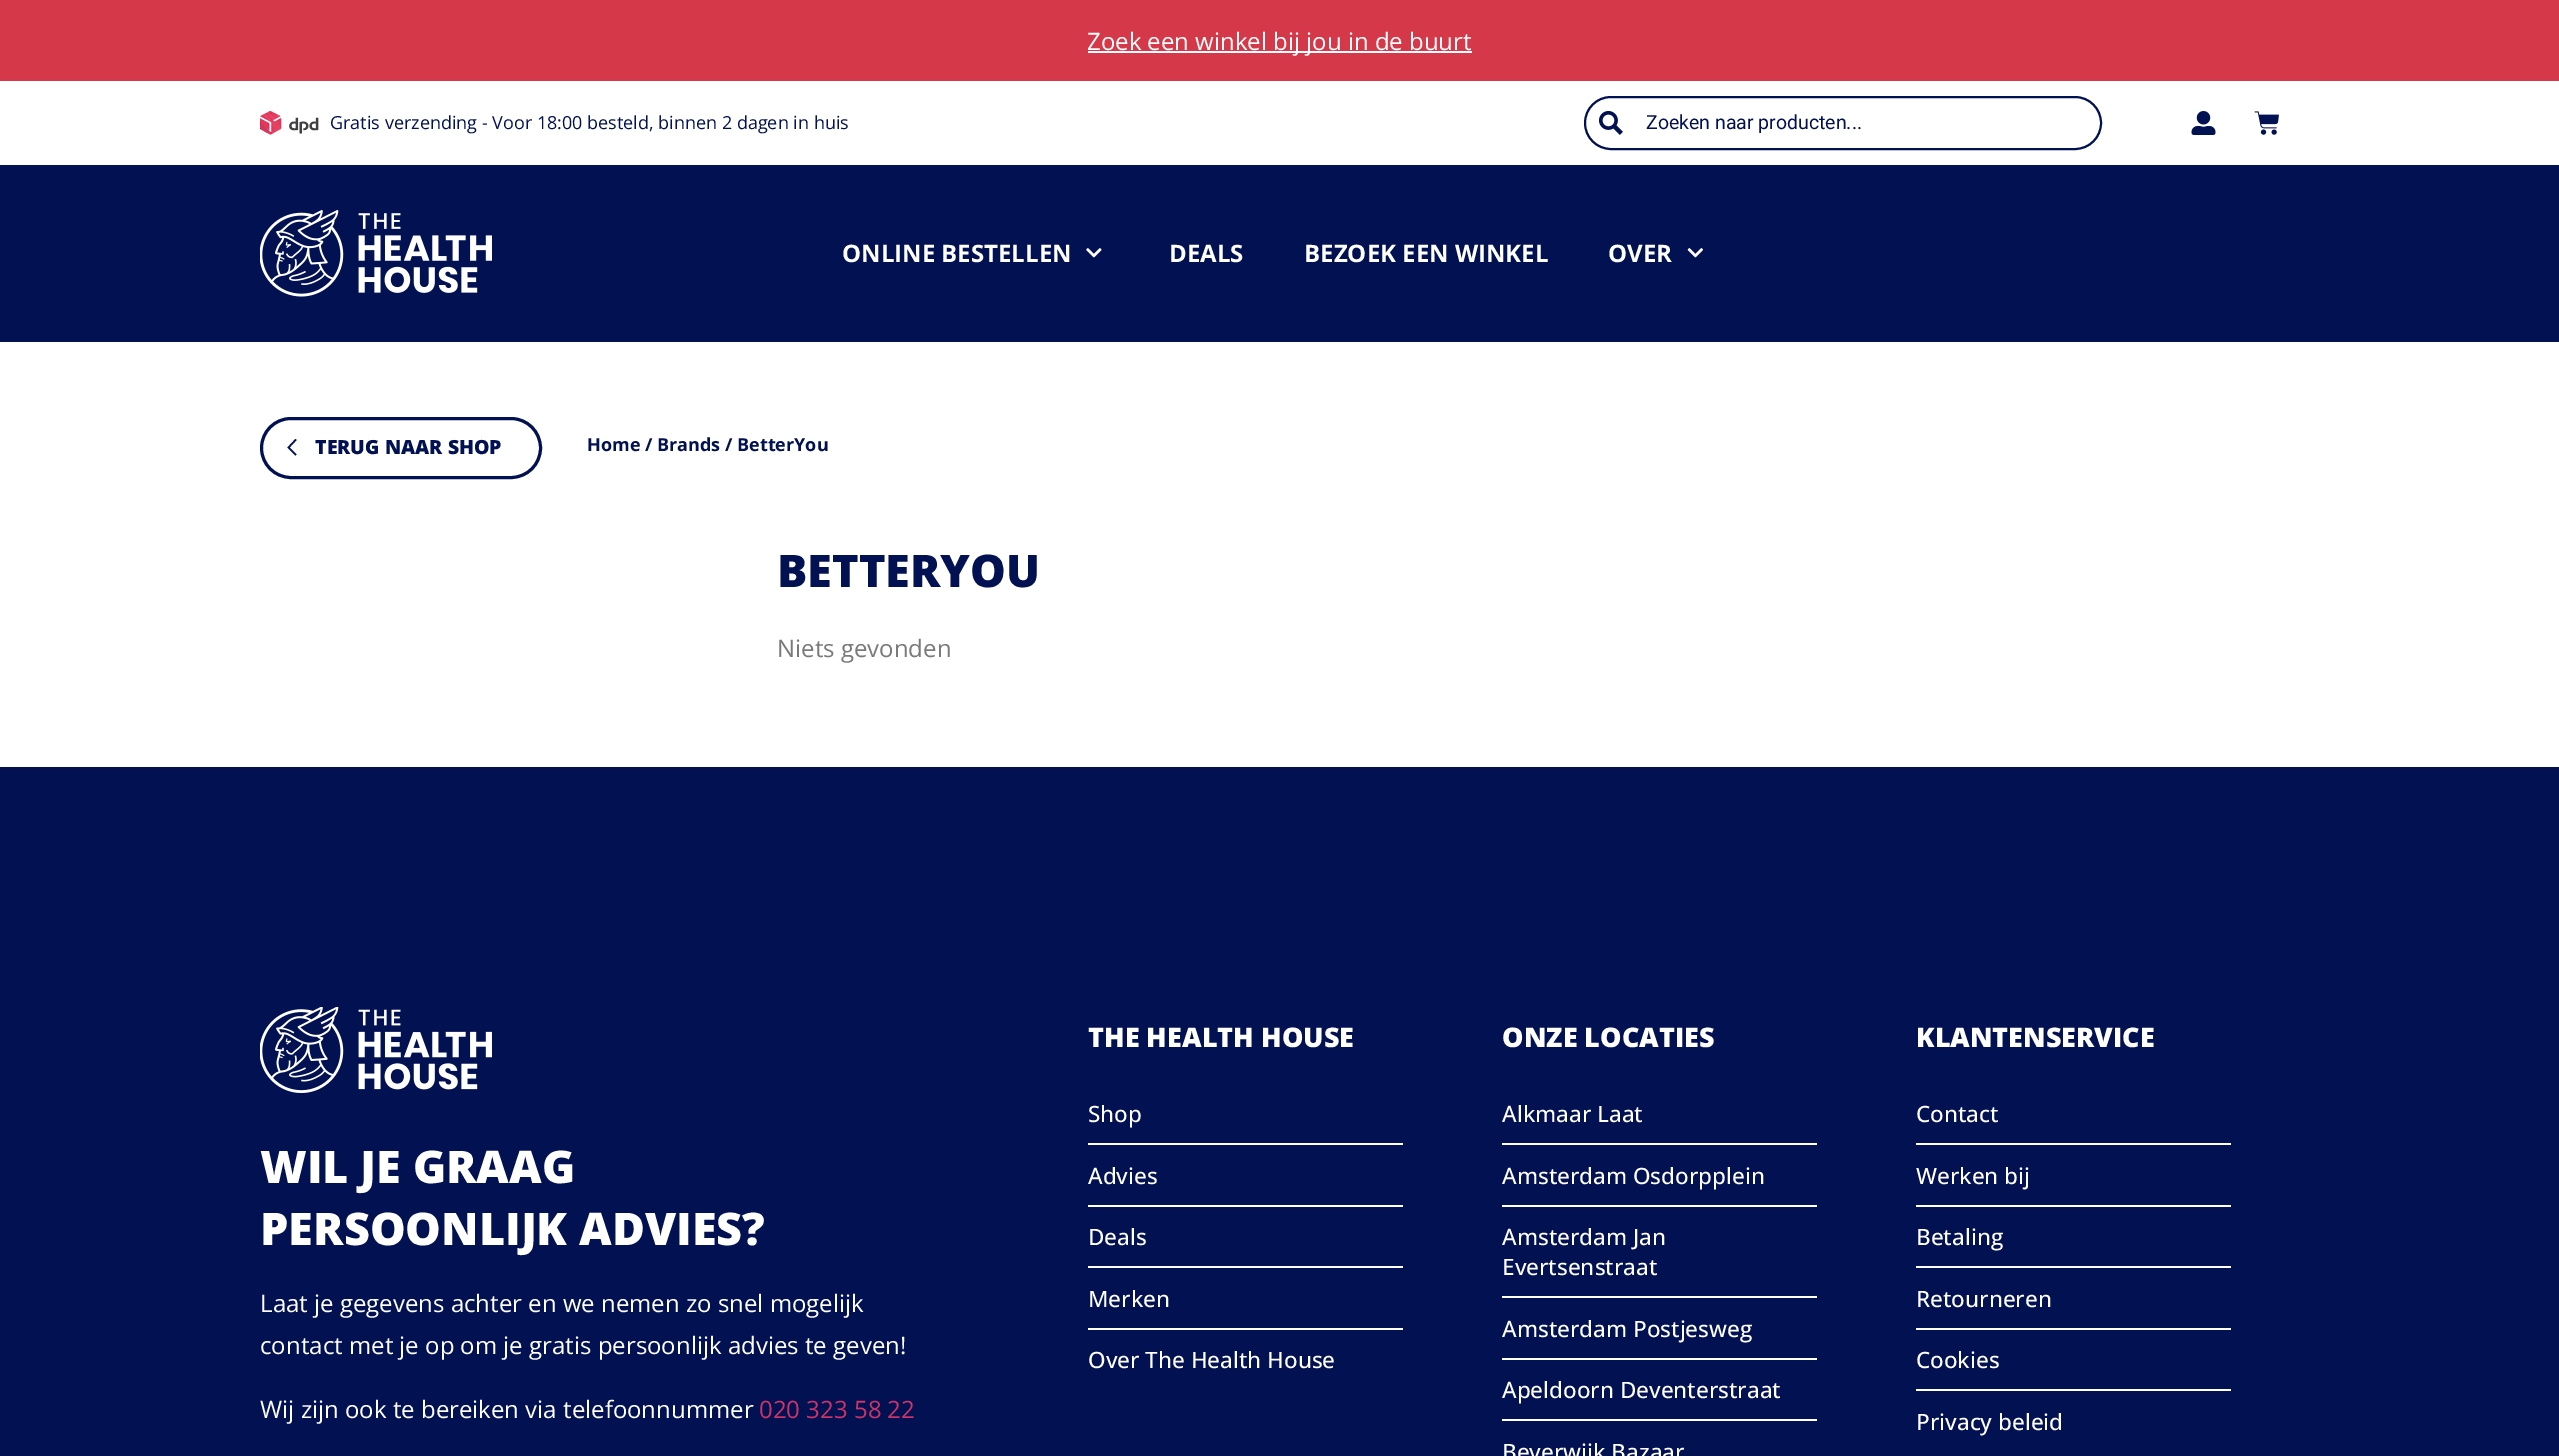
%!PS
<< /PageSize [2559 1456] >> setpagedevice
/rgb { 3 { 255 div 3 1 roll } repeat setrgbcolor } def
/font { [ exch dup neg 0 0 3 -1 roll 0 0 ] selectfont } def
/roundrect { 5 dict begin { /r /h /w /y /x } { exch def } forall
  x r add y moveto x w add y 2 copy h add r arct x w add y h add x 1 index r arct
  x y h add x y r arct x y 2 copy exch w add exch r arct closepath end } def
/picture { 5 dict begin { /h /w /y /x /name } { exch def } forall
  gsave x y translate w h scale
  w h 8 [w 0 0 h 0 0] name (r) file false 3 colorimage grestore end } def
0 1456 translate 1 -1 scale
4 setmiterlimit
255 255 255 rgb
0 0 2559 1456 rectfill
213 57 73 rgb
0 0 2559 81 rectfill
255 255 255 rgb
1088 51 384 2 rectfill
(img/1.rgb) 260 111 59 24 picture
2 17 82 rgb
2 setlinewidth
1585 97 516 52 26 roundrect stroke
(img/2.rgb) 1599 111 24 24 picture
(img/3.rgb) 2191 111 25 24 picture
(img/4.rgb) 2254 111 25 24 picture
0 165 2559 177 rectfill
(img/5.rgb) 260 210 232 87 picture
(img/6.rgb) 1086 248 16 10 picture
(img/7.rgb) 1687 248 16 10 picture
3 setlinewidth
261.5 418.5 279 59 29.5 roundrect stroke
gsave
296.5 439 moveto 296.5 455.5 lineto 287 455.5 lineto 287 439 lineto closepath clip newpath
1.6 setlinewidth
296 439.5 moveto 288.5 447.5 lineto 296 455 lineto stroke
grestore
0 767 2559 689 rectfill
(img/8.rgb) 260 1007 232 86 picture
[
  [1088 1143 315 2 255 255 255]
  [1088 1205 315 2 255 255 255]
  [1088 1266 315 2 255 255 255]
  [1088 1328 315 2 255 255 255]
  [1502 1143 315 2 255 255 255]
  [1502 1205 315 2 255 255 255]
  [1502 1296 315 2 255 255 255]
  [1502 1358 315 2 255 255 255]
  [1502 1419 315 2 255 255 255]
  [1916 1143 315 2 255 255 255]
  [1916 1205 315 2 255 255 255]
  [1916 1266 315 2 255 255 255]
  [1916 1328 315 2 255 255 255]
  [1916 1389 315 2 255 255 255]
] { aload pop rgb rectfill } forall
/OpenSans-Regular 24 font
1087 50 moveto (Zoek een winkel bij jou in de buurt) show
/OpenSans-Regular 18 font
2 17 82 rgb
330 129 moveto (Gratis verzending - Voor 18:00 besteld, binnen 2 dagen in huis) show
/Roboto-Regular 19.5 font
1646 129 moveto (Zoeken naar producten...) show
/OpenSans-Bold 24 font
255 255 255 rgb
[
  [(ONLINE BESTELLEN) 842 262]
  [(DEALS) 1169 262]
  [(BEZOEK EEN WINKEL) 1304 262]
  [(OVER) 1608 262]
] { aload pop moveto show } forall
/OpenSans-ExtraBold 19.5 font
2 17 82 rgb
315 454 moveto (TERUG NAAR SHOP) show
/OpenSans-Bold 18 font
587 451 moveto (Home / Brands / BetterYou) show
/OpenSans-ExtraBold 45 font
777 587 moveto (BETTERYOU) show
/OpenSans-Regular 24 font
122 122 122 rgb
777 657 moveto (Niets gevonden) show
/OpenSans-ExtraBold 45 font
255 255 255 rgb
260 1183 moveto (WIL JE GRAAG) show
260 1245 moveto (PERSOONLIJK ADVIES?) show
/OpenSans-Regular 24 font
[
  [(Laat je gegevens achter en we nemen zo snel mogelijk) 260 1312]
  [(contact met je op om je gratis persoonlijk advies te geven!) 260 1354]
  [(Wij zijn ook te bereiken via telefoonnummer) 260 1418]
] { aload pop moveto show } forall
204 51 102 rgb
759 1418 moveto (020 323 58 22) show
/OpenSans-ExtraBold 27 font
255 255 255 rgb
1088 1047 moveto (THE HEALTH HOUSE) show
/OpenSans-Medium 22.5 font
[
  [(Shop) 1088 1122]
  [(Advies) 1088 1184]
  [(Deals) 1088 1245]
  [(Merken) 1088 1307]
  [(Over The Health House) 1088 1368]
] { aload pop moveto show } forall
/OpenSans-ExtraBold 27 font
1502 1047 moveto (ONZE LOCATIES) show
/OpenSans-Medium 22.5 font
[
  [(Alkmaar Laat) 1502 1122]
  [(Amsterdam Osdorpplein) 1502 1184]
  [(Amsterdam Jan) 1502 1245]
  [(Evertsenstraat) 1502 1275]
  [(Amsterdam Postjesweg) 1502 1337]
  [(Apeldoorn Deventerstraat) 1502 1398]
  [(Beverwijk Bazaar) 1502 1460]
] { aload pop moveto show } forall
/OpenSans-ExtraBold 27 font
1916 1047 moveto (KLANTENSERVICE) show
/OpenSans-Medium 22.5 font
[
  [(Contact) 1916 1122]
  [(Werken bij) 1916 1184]
  [(Betaling) 1916 1245]
  [(Retourneren) 1916 1307]
  [(Cookies) 1916 1368]
  [(Privacy beleid) 1916 1430]
] { aload pop moveto show } forall
showpage
